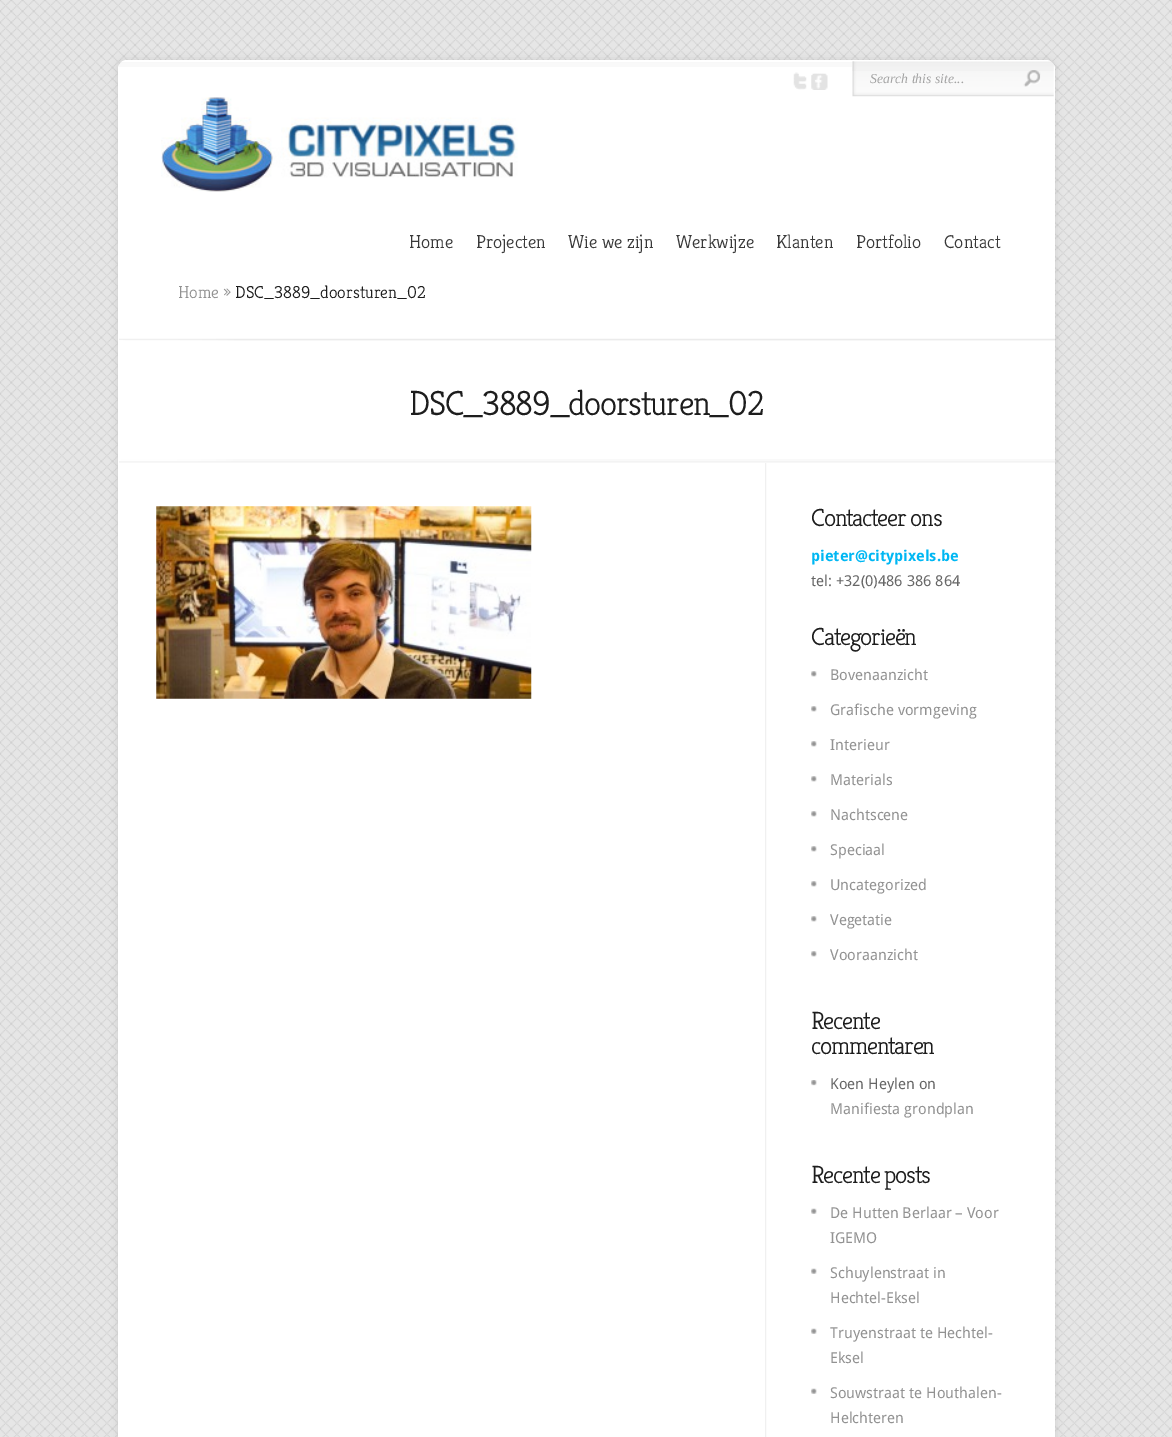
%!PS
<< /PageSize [1172 1437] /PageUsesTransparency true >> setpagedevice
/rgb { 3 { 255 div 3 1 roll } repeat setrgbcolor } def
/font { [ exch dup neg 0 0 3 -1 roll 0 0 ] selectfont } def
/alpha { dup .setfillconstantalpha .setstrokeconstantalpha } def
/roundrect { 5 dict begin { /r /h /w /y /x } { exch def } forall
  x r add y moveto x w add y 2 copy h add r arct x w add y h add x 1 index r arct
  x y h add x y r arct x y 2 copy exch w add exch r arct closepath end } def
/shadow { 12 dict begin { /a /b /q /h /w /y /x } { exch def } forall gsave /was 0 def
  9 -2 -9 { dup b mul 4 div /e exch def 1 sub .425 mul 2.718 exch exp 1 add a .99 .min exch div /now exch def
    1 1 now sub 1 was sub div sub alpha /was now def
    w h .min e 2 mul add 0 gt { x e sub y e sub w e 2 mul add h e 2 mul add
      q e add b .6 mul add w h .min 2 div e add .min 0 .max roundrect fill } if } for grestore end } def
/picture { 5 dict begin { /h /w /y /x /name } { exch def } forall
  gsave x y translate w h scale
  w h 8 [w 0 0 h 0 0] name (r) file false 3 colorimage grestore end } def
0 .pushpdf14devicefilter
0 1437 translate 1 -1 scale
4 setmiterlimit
230 230 230 rgb
0 0 1172 1437 rectfill
(img/1.rgb) 0 0 1172 1437 picture
0 0 0 rgb
118 60 937 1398 9 4 0.1 shadow
255 255 255 rgb
118 60 937 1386 9 roundrect fill
(img/2.rgb) 119 62 935 5 picture
(img/3.rgb) 793 72 14 18 picture
(img/4.rgb) 811 73 17 17 picture
(img/5.rgb) 852 61 202 36 picture
(img/6.rgb) 1023 70 18 17 picture
(img/7.rgb) 161 97 357 95 picture
(img/8.rgb) 119 338 936 3 picture
(img/9.rgb) 119 459 936 4 picture
(img/10.rgb) 765 463 2 974 picture
(img/11.rgb) 156 506 376 193 picture
(img/12.rgb) 811 671 6 6 picture
(img/12.rgb) 811 706 6 6 picture
(img/12.rgb) 811 741 6 6 picture
(img/12.rgb) 811 776 6 6 picture
(img/12.rgb) 811 811 6 6 picture
(img/12.rgb) 811 846 6 6 picture
(img/12.rgb) 811 881 6 6 picture
(img/12.rgb) 811 916 6 6 picture
(img/12.rgb) 811 951 6 6 picture
(img/13.rgb) 811 1080 6 6 picture
(img/14.rgb) 811 1208 6 6 picture
(img/14.rgb) 811 1268 6 6 picture
(img/14.rgb) 811 1328 6 6 picture
(img/14.rgb) 811 1388 6 6 picture
/LiberationSerif-Italic 13.75 font
163 163 163 rgb
870 83 moveto (Search this site...) show
/Kreon-Light 18.75 font
57 57 57 rgb
[
  [(Home) 409 248]
  [(Projecten) 476 248]
  [(Wie we zijn) 568 248]
  [(Werkwijze) 676 248]
  [(Klanten) 776 248]
  [(Portfolio) 856 248]
  [(Contact) 944 248]
] { aload pop moveto show } forall
/Kreon-Light 17.5 font
146 146 146 rgb
178 298 moveto (Home ») show
29 29 29 rgb
235 298 moveto (DSC_3889_doorsturen_02) show
/Kreon-Light 35 font
409 415 moveto -1.25 0 (DSC_3889_doorsturen_02) ashow
/Kreon-Light 25 font
811 526 moveto -1.25 0 (Contacteer ons) ashow
/DroidSans-Bold 15 font
0 183 243 rgb
811 561 moveto (pieter@citypixels.be) show
/DroidSans-Regular 15 font
102 102 102 rgb
811 586 moveto (tel: +32\(0\)486 386 864) show
/Kreon-Light 25 font
29 29 29 rgb
811 645 moveto -1.25 0 (Categorieën) ashow
/DroidSans-Regular 15 font
146 146 146 rgb
[
  [(Bovenaanzicht) 830 680]
  [(Grafische vormgeving) 830 715]
  [(Interieur) 830 750]
  [(Materials) 830 785]
  [(Nachtscene) 830 820]
  [(Speciaal) 830 855]
  [(Uncategorized) 830 890]
  [(Vegetatie) 830 925]
  [(Vooraanzicht) 830 960]
] { aload pop moveto show } forall
/Kreon-Light 25 font
29 29 29 rgb
811 1029 moveto -1.25 0 (Recente) ashow
811 1054 moveto -1.25 0 (commentaren) ashow
/DroidSans-Regular 15 font
102 102 102 rgb
830 1089 moveto (Koen Heylen on) show
146 146 146 rgb
830 1114 moveto (Manifiesta grondplan) show
/Kreon-Light 25 font
29 29 29 rgb
811 1183 moveto -1.25 0 (Recente posts) ashow
/DroidSans-Regular 15 font
146 146 146 rgb
[
  [(De Hutten Berlaar – Voor) 830 1218]
  [(IGEMO) 830 1243]
  [(Schuylenstraat in) 830 1278]
  [(Hechtel-Eksel) 830 1303]
  [(Truyenstraat te Hechtel-) 830 1338]
  [(Eksel) 830 1363]
  [(Souwstraat te Houthalen-) 830 1398]
  [(Helchteren) 830 1423]
] { aload pop moveto show } forall
.poppdf14devicefilter showpage
